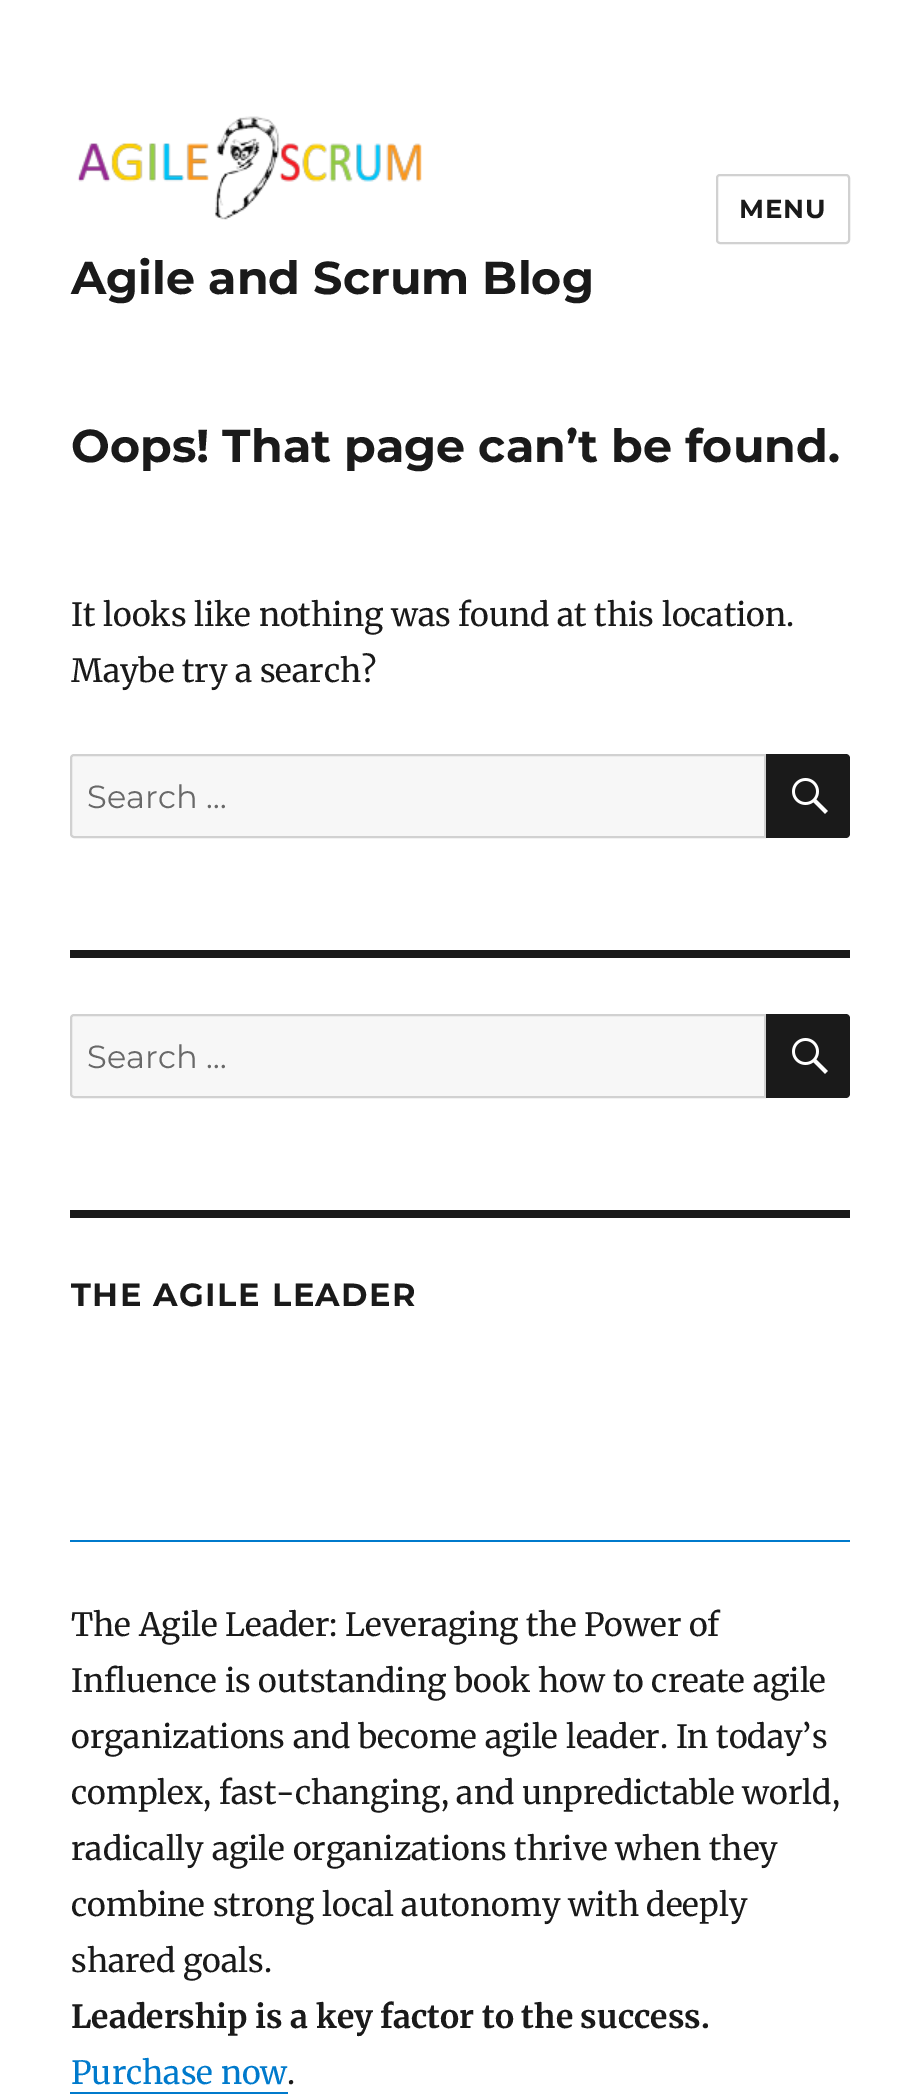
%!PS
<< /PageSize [919 2099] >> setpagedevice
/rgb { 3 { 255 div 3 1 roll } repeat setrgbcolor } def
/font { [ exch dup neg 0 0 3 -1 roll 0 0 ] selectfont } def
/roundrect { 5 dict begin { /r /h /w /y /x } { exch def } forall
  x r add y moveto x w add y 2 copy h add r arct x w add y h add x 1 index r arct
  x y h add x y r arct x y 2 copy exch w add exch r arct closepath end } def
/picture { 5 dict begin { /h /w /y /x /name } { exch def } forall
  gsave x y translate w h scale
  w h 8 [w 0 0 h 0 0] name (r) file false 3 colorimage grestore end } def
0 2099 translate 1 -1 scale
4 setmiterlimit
255 255 255 rgb
0 0 919 2099 rectfill
209 209 209 rgb
2 setlinewidth
717 175 132 68 3 roundrect stroke
(img/1.rgb) 77 116 345 104 picture
247 247 247 rgb
74 755 moveto 765 755 lineto 765 837 lineto 74 837 lineto 72.5 837 71 835.5 71 834 curveto 71 758 lineto 71 756.5 72.5 755 74 755 curveto closepath gsave fill grestore
209 209 209 rgb
stroke
26 26 26 rgb
766 754 moveto 846 754 lineto 848 754 850 756 850 758 curveto 850 834 lineto 850 836 848 838 846 838 curveto 766 838 lineto closepath fill
(img/2.rgb) 792 778 36 36 picture
70 950 780 8 rectfill
247 247 247 rgb
74 1015 moveto 765 1015 lineto 765 1097 lineto 74 1097 lineto 72.5 1097 71 1095.5 71 1094 curveto 71 1018 lineto 71 1016.5 72.5 1015 74 1015 curveto closepath gsave fill grestore
209 209 209 rgb
stroke
26 26 26 rgb
766 1014 moveto 846 1014 lineto 848 1014 850 1016 850 1018 curveto 850 1094 lineto 850 1096 848 1098 846 1098 curveto 766 1098 lineto closepath fill
(img/2.rgb) 792 1038 36 36 picture
[
  [70 1210 780 8 26 26 26]
  [70 1540 780 2 0 122 204]
  [70 2092 218 2 0 122 204]
] { aload pop rgb rectfill } forall
/Montserrat-Bold 26 font
26 26 26 rgb
739 218 moveto 1 0 (MENU) ashow
/Montserrat-Bold 46 font
71 294 moveto (Agile and Scrum Blog) show
71 462 moveto (Oops! That page can’t be found.) show
/Merriweather-Regular 32 font
71 626 moveto (It looks like nothing was found at this location.) show
71 682 moveto (Maybe try a search?) show
/Montserrat-Regular 32 font
104 104 104 rgb
87 808 moveto (Search …) show
87 1068 moveto (Search …) show
/Montserrat-Bold 32 font
26 26 26 rgb
71 1306 moveto 1.5 0 (THE AGILE LEADER) ashow
/Merriweather-Regular 32 font
[
  [(The Agile Leader: Leveraging the Power of) 71 1636]
  [(Influence is outstanding book how to create agile) 71 1692]
  [(organizations and become agile leader. In today’s) 71 1748]
  [(complex, fast-changing, and unpredictable world,) 71 1804]
  [(radically agile organizations thrive when they) 71 1860]
  [(combine strong local autonomy with deeply) 71 1916]
  [(shared goals.) 71 1972]
] { aload pop moveto show } forall
/Merriweather-Bold 32 font
71 2028 moveto (Leadership is a key factor to the success.) show
/Merriweather-Regular 32 font
0 122 204 rgb
71 2084 moveto (Purchase now) show
26 26 26 rgb
287 2084 moveto (.) show
showpage
